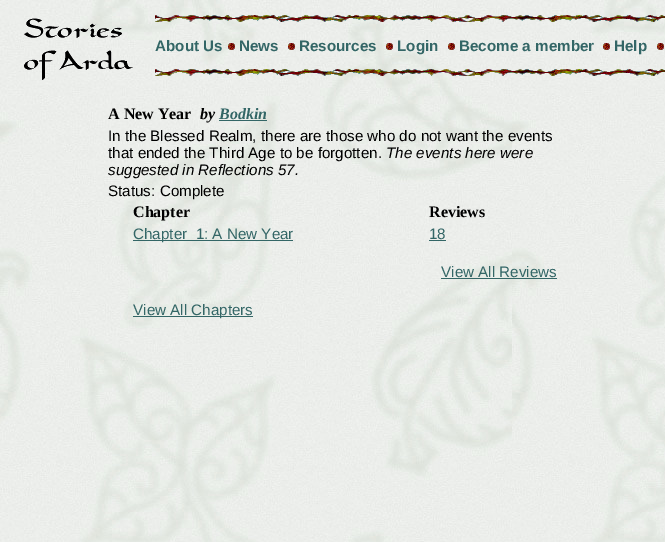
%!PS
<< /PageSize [665 542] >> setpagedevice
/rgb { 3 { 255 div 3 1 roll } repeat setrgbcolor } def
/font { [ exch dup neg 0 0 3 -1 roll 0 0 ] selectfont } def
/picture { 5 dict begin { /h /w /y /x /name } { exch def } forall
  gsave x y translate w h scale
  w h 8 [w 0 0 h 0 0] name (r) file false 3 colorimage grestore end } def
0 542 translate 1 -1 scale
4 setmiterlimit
255 255 255 rgb
0 0 665 542 rectfill
(img/1.rgb) 0 0 665 542 picture
(img/2.rgb) 24 18 109 62 picture
(img/3.rgb) 155 15 510 7 picture
(img/4.rgb) 228 43 7 7 picture
(img/5.rgb) 288 43 7 7 picture
(img/6.rgb) 386 43 7 7 picture
(img/7.rgb) 448 43 7 7 picture
(img/8.rgb) 603 43 7 7 picture
(img/9.rgb) 657 43 7 7 picture
(img/10.rgb) 155 69 510 7 picture
[
  [219 120 48 1 51 102 102]
  [133 240 160 1 51 102 102]
  [429 240 17 1 51 102 102]
  [441 278 116 1 51 102 102]
  [133 316 120 1 51 102 102]
] { aload pop rgb rectfill } forall
/LiberationSans-Bold 15.2 font
[
  [(About Us) 155 51]
  [(News) 239 51]
  [(Resources) 299 51]
  [(Login) 397 51]
  [(Become a member) 459 51]
  [(Help) 614 51]
] { aload pop moveto show } forall
/LiberationSerif-Bold 16 font
0 0 0 rgb
108 119 moveto (A New Year) show
/LiberationSerif-BoldItalic 16 font
200 119 moveto (by) show
51 102 102 rgb
219 119 moveto (Bodkin) show
/LiberationSans-Regular 15.2 font
0 0 0 rgb
108 141 moveto (In the Blessed Realm, there are those who do not want the events) show
108 158 moveto (that ended the Third Age to be forgotten.) show
/LiberationSans-Italic 15.2 font
386 158 moveto (The events here were) show
108 175 moveto (suggested in Reflections 57.) show
/LiberationSans-Regular 15.2 font
108 196 moveto (Status: Complete) show
/LiberationSerif-Bold 16 font
133 217 moveto (Chapter) show
429 217 moveto (Reviews) show
/LiberationSans-Regular 15.2 font
51 102 102 rgb
[
  [(Chapter  1: A New Year) 133 239]
  [(18) 429 239]
  [(View All Reviews) 441 277]
  [(View All Chapters) 133 315]
] { aload pop moveto show } forall
showpage
